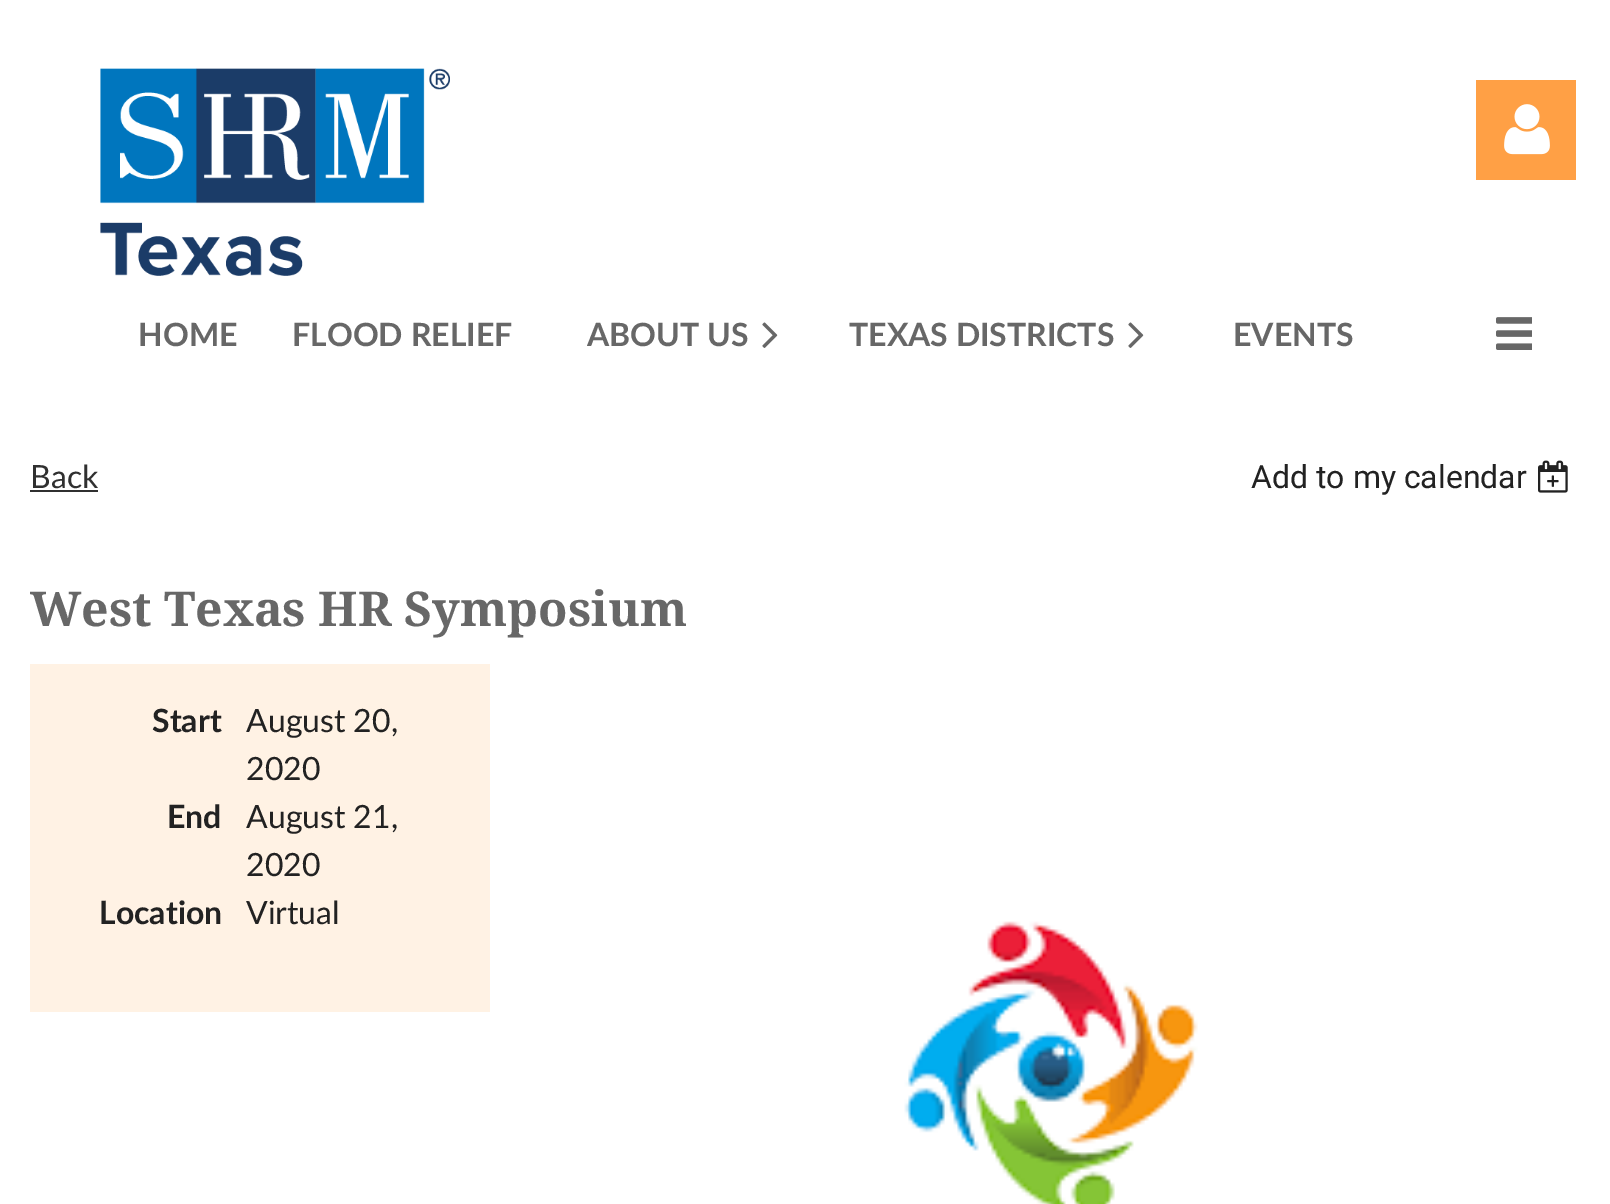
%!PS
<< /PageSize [1610 1204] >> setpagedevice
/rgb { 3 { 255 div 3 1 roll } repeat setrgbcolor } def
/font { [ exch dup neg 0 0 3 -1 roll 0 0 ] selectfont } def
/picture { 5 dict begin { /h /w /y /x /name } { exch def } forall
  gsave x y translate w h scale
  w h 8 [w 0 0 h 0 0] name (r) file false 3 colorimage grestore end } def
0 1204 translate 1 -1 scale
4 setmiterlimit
255 255 255 rgb
0 0 1610 1204 rectfill
(img/1.rgb) 100 68 350 208 picture
255 160 69 rgb
1476 80 100 100 rectfill
(img/2.rgb) 1504 104 46 51 picture
(img/3.rgb) 762 322 16 26 picture
(img/3.rgb) 1128 322 16 26 picture
(img/4.rgb) 1496 317 36 33 picture
48 48 48 rgb
30 490 68 2 rectfill
(img/5.rgb) 1538 460 30 33 picture
255 242 228 rgb
30 664 460 348 rectfill
(img/6.rgb) 904 921 294 283 picture
/Lato-Bold 32 font
103 103 103 rgb
[
  [(HOME) 138 346]
  [(FLOOD RELIEF) 292 346]
  [(ABOUT US) 587 346]
  [(TEXAS DISTRICTS) 849 346]
  [(EVENTS) 1233 346]
] { aload pop moveto show } forall
/Lato-Regular 32 font
48 48 48 rgb
30 488 moveto (Back) show
/Roboto-Regular 32 font
34 34 34 rgb
1251 488 moveto (Add to my calendar) show
/DroidSerif-Bold 48 font
103 103 103 rgb
30 626 moveto (West Texas HR Symposium) show
/Lato-Bold 32 font
34 34 34 rgb
152 732 moveto (Start) show
/Lato-Regular 32 font
246 732 moveto (August 20,) show
246 780 moveto (2020) show
/Lato-Bold 32 font
167 828 moveto (End) show
/Lato-Regular 32 font
246 828 moveto (August 21,) show
246 876 moveto (2020) show
/Lato-Bold 32 font
99 924 moveto (Location) show
/Lato-Regular 32 font
246 924 moveto (Virtual) show
showpage
